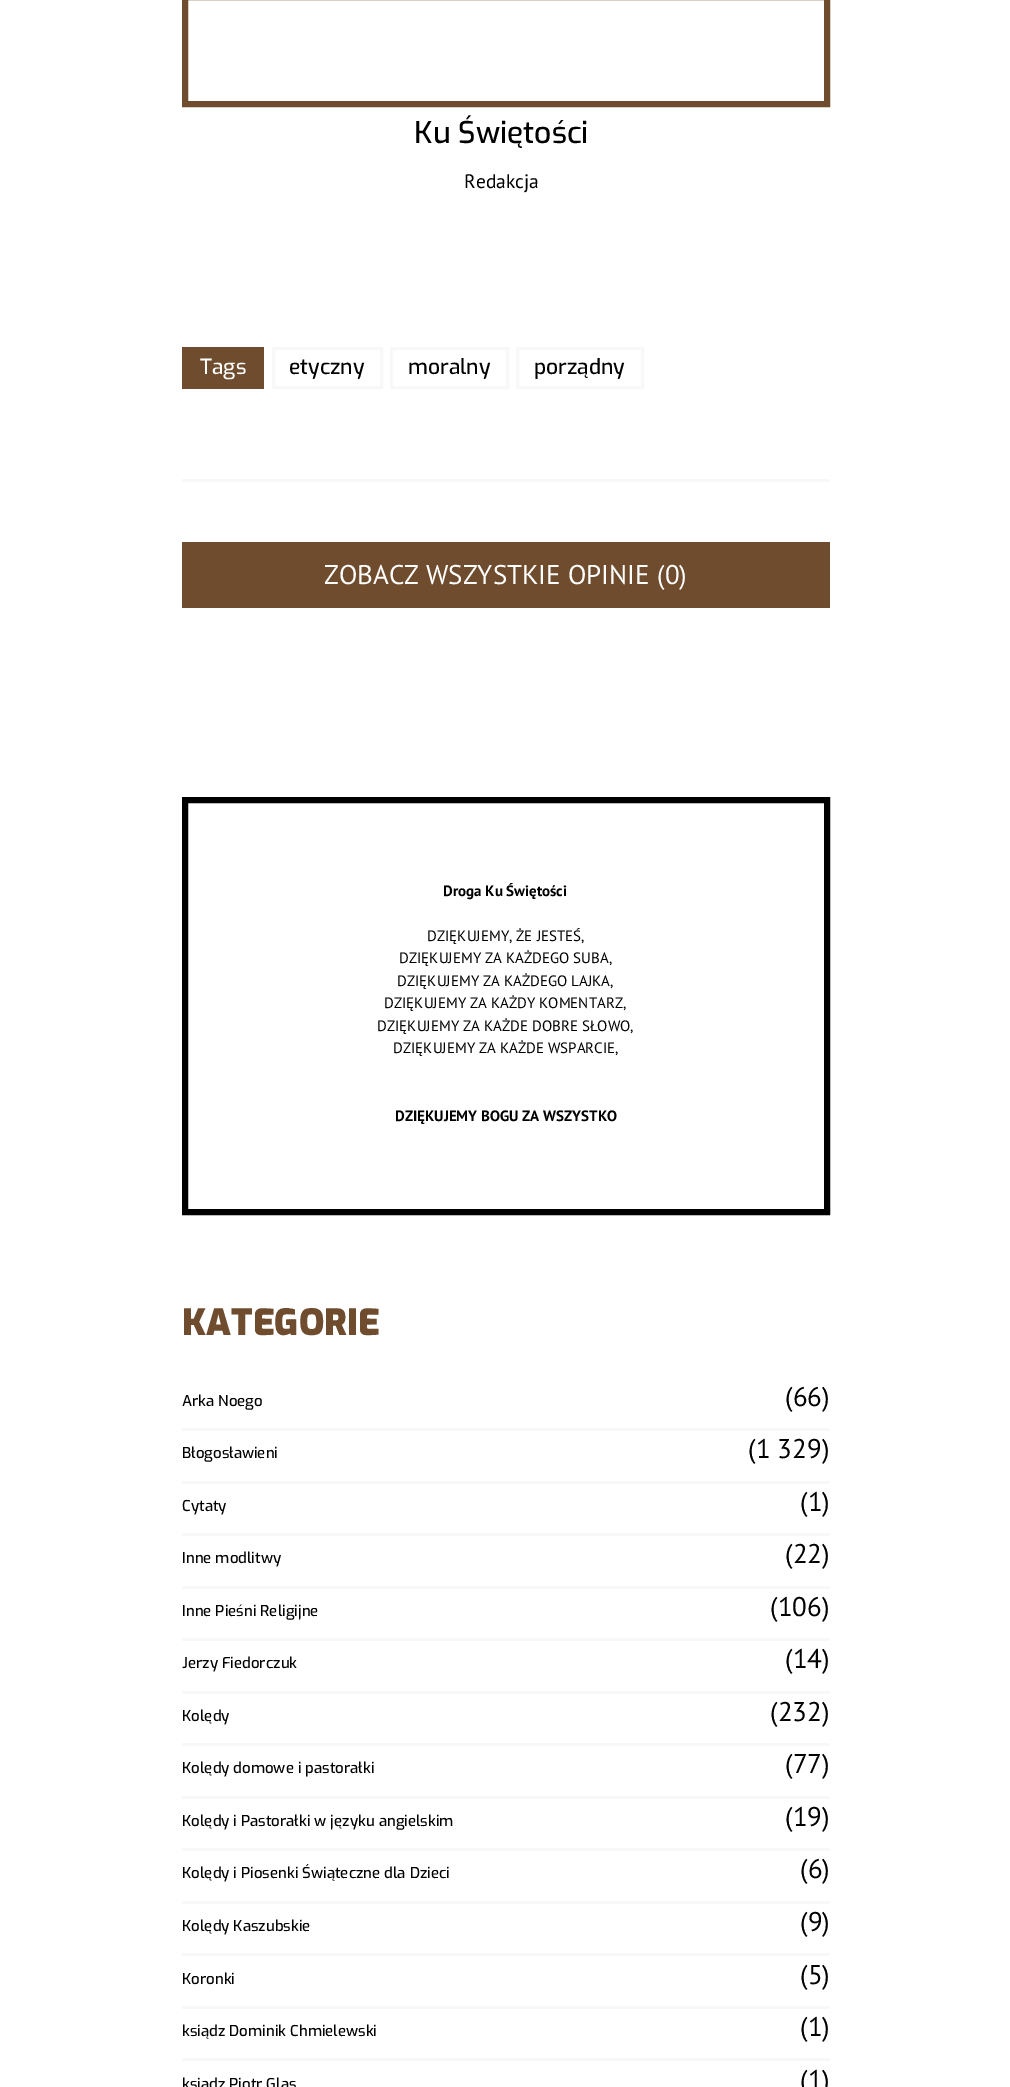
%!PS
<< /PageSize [1010 2087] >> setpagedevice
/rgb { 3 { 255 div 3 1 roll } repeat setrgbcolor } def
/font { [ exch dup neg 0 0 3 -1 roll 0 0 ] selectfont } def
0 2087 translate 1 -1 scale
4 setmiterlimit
255 255 255 rgb
0 0 1010 2087 rectfill
111 76 46 rgb
6 setlinewidth
185 -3 642 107 rectstroke
182 347 82 42 rectfill
248 248 248 rgb
3 setlinewidth
273.5 348.5 108 39 rectstroke
391.5 348.5 116 39 rectstroke
517.5 348.5 125 39 rectstroke
182 479 648 3 rectfill
111 76 46 rgb
182 542 648 66 rectfill
0 0 0 rgb
6 setlinewidth
185 800 642 412 rectstroke
[
  [182 1428 648 3 248 248 248]
  [182 1481 648 3 248 248 248]
  [182 1533 648 3 248 248 248]
  [182 1586 648 3 248 248 248]
  [182 1638 648 3 248 248 248]
  [182 1691 648 3 248 248 248]
  [182 1743 648 3 248 248 248]
  [182 1796 648 3 248 248 248]
  [182 1848 648 3 248 248 248]
  [182 1901 648 3 248 248 248]
  [182 1953 648 3 248 248 248]
  [182 2006 648 3 248 248 248]
  [182 2058 648 3 248 248 248]
] { aload pop rgb rectfill } forall
/Exo-Medium 30 font
0 0 0 rgb
414 143 moveto (Ku Świętości) show
/PTSans-Regular 19.5 font
464 188 moveto (Redakcja) show
/Exo-Medium 21 font
255 255 255 rgb
200 374 moveto (Tags) show
0 0 0 rgb
[
  [(etyczny) 289 374]
  [(moralny) 408 374]
  [(porządny) 534 374]
] { aload pop moveto show } forall
/PTSans-Regular 27 font
255 255 255 rgb
324 584 moveto (ZOBACZ WSZYSTKIE OPINIE \(0\)) show
/PTSans-Bold 15 font
0 0 0 rgb
443 896 moveto (Droga Ku Świętości) show
/PTSans-Regular 15 font
[
  [(DZIĘKUJEMY, ŻE JESTEŚ,) 427 941]
  [(DZIĘKUJEMY ZA KAŻDEGO SUBA,) 399 963]
  [(DZIĘKUJEMY ZA KAŻDEGO LAJKA,) 397 986]
  [(DZIĘKUJEMY ZA KAŻDY KOMENTARZ,) 384 1008]
  [(DZIĘKUJEMY ZA KAŻDE DOBRE SŁOWO,) 377 1031]
  [(DZIĘKUJEMY ZA KAŻDE WSPARCIE,) 393 1053]
] { aload pop moveto show } forall
/PTSans-Bold 15 font
395 1121 moveto (DZIĘKUJEMY BOGU ZA WSZYSTKO) show
/Exo-Black 36 font
111 76 46 rgb
182 1335 moveto (KATEGORIE) show
/Exo-Medium 15 font
0 0 0 rgb
182 1406 moveto (Arka Noego) show
/PTSans-Regular 27 font
785 1406 moveto (\(66\)) show
/Exo-Medium 15 font
182 1458 moveto (Błogosławieni) show
/PTSans-Regular 27 font
748 1458 moveto (\(1 329\)) show
/Exo-Medium 15 font
182 1511 moveto (Cytaty) show
/PTSans-Regular 27 font
800 1511 moveto (\(1\)) show
/Exo-Medium 15 font
182 1563 moveto (Inne modlitwy) show
/PTSans-Regular 27 font
785 1563 moveto (\(22\)) show
/Exo-Medium 15 font
182 1616 moveto (Inne Pieśni Religijne) show
/PTSans-Regular 27 font
770 1616 moveto (\(106\)) show
/Exo-Medium 15 font
182 1668 moveto (Jerzy Fiedorczuk) show
/PTSans-Regular 27 font
785 1668 moveto (\(14\)) show
/Exo-Medium 15 font
182 1721 moveto (Kolędy) show
/PTSans-Regular 27 font
770 1721 moveto (\(232\)) show
/Exo-Medium 15 font
182 1773 moveto (Kolędy domowe i pastorałki) show
/PTSans-Regular 27 font
785 1773 moveto (\(77\)) show
/Exo-Medium 15 font
182 1826 moveto (Kolędy i Pastorałki w języku angielskim) show
/PTSans-Regular 27 font
785 1826 moveto (\(19\)) show
/Exo-Medium 15 font
182 1878 moveto (Kolędy i Piosenki Świąteczne dla Dzieci) show
/PTSans-Regular 27 font
800 1878 moveto (\(6\)) show
/Exo-Medium 15 font
182 1931 moveto (Kolędy Kaszubskie) show
/PTSans-Regular 27 font
800 1931 moveto (\(9\)) show
/Exo-Medium 15 font
182 1984 moveto (Koronki) show
/PTSans-Regular 27 font
800 1984 moveto (\(5\)) show
/Exo-Medium 15 font
182 2036 moveto (ksiądz Dominik Chmielewski) show
/PTSans-Regular 27 font
800 2036 moveto (\(1\)) show
/Exo-Medium 15 font
182 2089 moveto (ksiądz Piotr Glas) show
/PTSans-Regular 27 font
800 2089 moveto (\(1\)) show
showpage
